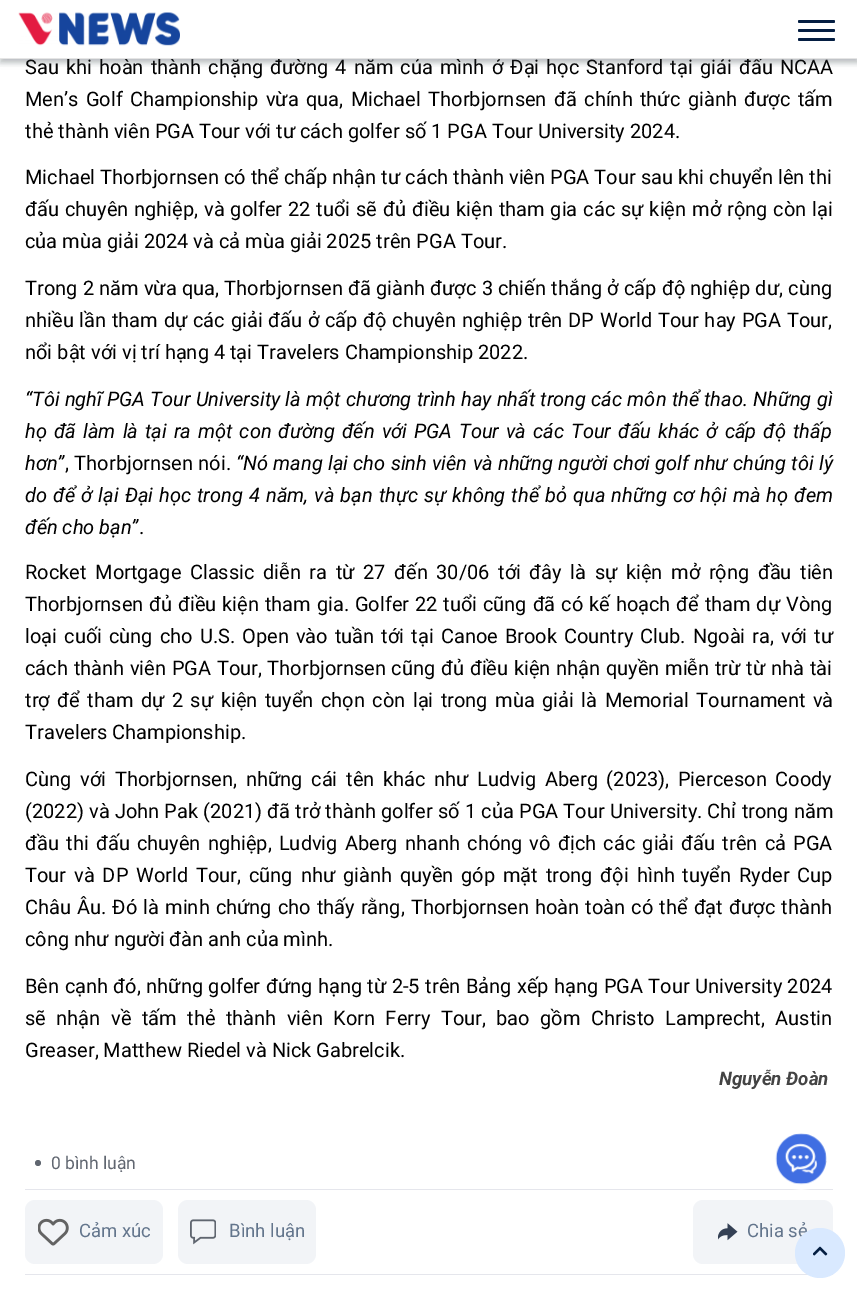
%!PS
<< /PageSize [857 1290] /PageUsesTransparency true >> setpagedevice
/rgb { 3 { 255 div 3 1 roll } repeat setrgbcolor } def
/font { [ exch dup neg 0 0 3 -1 roll 0 0 ] selectfont } def
/alpha { dup .setfillconstantalpha .setstrokeconstantalpha } def
/circle { newpath 0 360 arc closepath } def
/roundrect { 5 dict begin { /r /h /w /y /x } { exch def } forall
  x r add y moveto x w add y 2 copy h add r arct x w add y h add x 1 index r arct
  x y h add x y r arct x y 2 copy exch w add exch r arct closepath end } def
/shadow { 12 dict begin { /a /b /q /h /w /y /x } { exch def } forall gsave /was 0 def
  9 -2 -9 { dup b mul 4 div /e exch def 1 sub .425 mul 2.718 exch exp 1 add a .99 .min exch div /now exch def
    1 1 now sub 1 was sub div sub alpha /was now def
    w h .min e 2 mul add 0 gt { x e sub y e sub w e 2 mul add h e 2 mul add
      q e add b .6 mul add w h .min 2 div e add .min 0 .max roundrect fill } if } for grestore end } def
/picture { 5 dict begin { /h /w /y /x /name } { exch def } forall
  gsave x y translate w h scale
  w h 8 [w 0 0 h 0 0] name (r) file false 3 colorimage grestore end } def
0 .pushpdf14devicefilter
0 1290 translate 1 -1 scale
4 setmiterlimit
255 255 255 rgb
0 0 857 1290 rectfill
3 44 71 rgb
3 0 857 59 0 5 0.12 shadow
96 102 112 rgb
38 1163 3 circle fill
229 230 236 rgb
25 1189 808 1 rectfill
25 1274 808 1 rectfill
242 244 247 rgb
25 1200 138 64 10 roundrect fill
(img/2.rgb) 38 1218 31 28 picture
178 1200 138 64 10 roundrect fill
(img/3.rgb) 190 1219 26 26 picture
693 1200 140 64 10 roundrect fill
(img/4.rgb) 718 1223 20 18 picture
(img/6.rgb) 775 1133 54 57 picture
/Roboto-Regular 20 font
0 0 0 rgb
25 74 moveto 2.2 0 32 (Sau khi hoàn thành chặng đường 4 năm của mình ở Đại học Stanford tại giải đấu NCAA) widthshow
255 255 255 rgb
0 0 857 58 rectfill
gsave
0 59 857 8 rectclip
57 63 72 rgb
0 4 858 59 0 3 0.3 shadow
grestore
4 30 66 rgb
798 20 37 3 1.5 roundrect fill
798 38 37 3 1.5 roundrect fill
798 29 37 3 1.5 roundrect fill
(img/1.rgb) 18 12 162 34 picture
229 229 229 rgb
0 58 857 1 rectfill
0 0 0 rgb
25 106 moveto 2.4 0 32 (Men’s Golf Championship vừa qua, Michael Thorbjornsen đã chính thức giành được tấm) widthshow
25 138 moveto (thẻ thành viên PGA Tour với tư cách golfer số 1 PGA Tour University 2024.) show
25 184 moveto 0.1 0 32 (Michael Thorbjornsen có thể chấp nhận tư cách thành viên PGA Tour sau khi chuyển lên thi) widthshow
25 216 moveto 0.9 0 32 (đấu chuyên nghiệp, và golfer 22 tuổi sẽ đủ điều kiện tham gia các sự kiện mở rộng còn lại) widthshow
25 248 moveto (của mùa giải 2024 và cả mùa giải 2025 trên PGA Tour.) show
25 295 moveto 0.25 0 32 (Trong 2 năm vừa qua, Thorbjornsen đã giành được 3 chiến thắng ở cấp độ nghiệp dư, cùng) widthshow
25 327 moveto 0.8 0 32 (nhiều lần tham dự các giải đấu ở cấp độ chuyên nghiệp trên DP World Tour hay PGA Tour,) widthshow
25 359 moveto (nổi bật với vị trí hạng 4 tại Travelers Championship 2022.) show
/Roboto-Italic 20 font
25 406 moveto 0.4 0 32 (“Tôi nghĩ PGA Tour University là một chương trình hay nhất trong các môn thể thao. Những gì) widthshow
25 438 moveto 2.2 0 32 (họ đã làm là tại ra một con đường đến với PGA Tour và các Tour đấu khác ở cấp độ thấp) widthshow
25 470 moveto (hơn”) show
/Roboto-Regular 20 font
65 470 moveto 0.5 0 32 (, Thorbjornsen nói.) widthshow
/Roboto-Italic 20 font
236 470 moveto 0.5 0 32 (“Nó mang lại cho sinh viên và những người chơi golf như chúng tôi lý) widthshow
25 502 moveto 1.25 0 32 (do để ở lại Đại học trong 4 năm, và bạn thực sự không thể bỏ qua những cơ hội mà họ đem) widthshow
25 534 moveto (đến cho bạn”) show
/Roboto-Regular 20 font
139 534 moveto (.) show
25 579 moveto 3.6 0 32 (Rocket Mortgage Classic diễn ra từ 27 đến 30/06 tới đây là sự kiện mở rộng đầu tiên) widthshow
25 611 moveto 0.9 0 32 (Thorbjornsen đủ điều kiện tham gia. Golfer 22 tuổi cũng đã có kế hoạch để tham dự Vòng) widthshow
25 643 moveto 2.1 0 32 (loại cuối cùng cho U.S. Open vào tuần tới tại Canoe Brook Country Club. Ngoài ra, với tư) widthshow
25 675 moveto 0.75 0 32 (cách thành viên PGA Tour, Thorbjornsen cũng đủ điều kiện nhận quyền miễn trừ từ nhà tài) widthshow
25 707 moveto 2.5 0 32 (trợ để tham dự 2 sự kiện tuyển chọn còn lại trong mùa giải là Memorial Tournament và) widthshow
25 739 moveto (Travelers Championship.) show
25 786 moveto 3.75 0 32 (Cùng với Thorbjornsen, những cái tên khác như Ludvig Aberg \(2023\), Pierceson Coody) widthshow
25 818 moveto 0.25 0 32 (\(2022\) và John Pak \(2021\) đã trở thành golfer số 1 của PGA Tour University. Chỉ trong năm) widthshow
25 850 moveto 2.25 0 32 (đầu thi đấu chuyên nghiệp, Ludvig Aberg nhanh chóng vô địch các giải đấu trên cả PGA) widthshow
25 882 moveto 2.9 0 32 (Tour và DP World Tour, cũng như giành quyền góp mặt trong đội hình tuyển Ryder Cup) widthshow
25 914 moveto 1.1 0 32 (Châu Âu. Đó là minh chứng cho thấy rằng, Thorbjornsen hoàn toàn có thể đạt được thành) widthshow
25 946 moveto (công như người đàn anh của mình.) show
25 993 moveto 0.5 0 32 (Bên cạnh đó, những golfer đứng hạng từ 2-5 trên Bảng xếp hạng PGA Tour University 2024) widthshow
25 1025 moveto 5.5 0 32 (sẽ nhận về tấm thẻ thành viên Korn Ferry Tour, bao gồm Christo Lamprecht, Austin) widthshow
25 1057 moveto (Greaser, Matthew Riedel và Nick Gabrelcik.) show
/Roboto-BoldItalic 18.75 font
68 68 68 rgb
719 1085 moveto (Nguyễn Đoàn) show
/Roboto-Regular 17.5 font
96 102 112 rgb
51 1169 moveto (0 bình luận) show
/Roboto-Regular 18.5 font
99 117 140 rgb
[
  [(Cảm xúc) 79 1237]
  [(Bình luận) 229 1237]
  [(Chia sẻ) 747 1237]
] { aload pop moveto show } forall
217 233 255 rgb
820 1253 25 circle fill
(img/5.rgb) 813 1246 15 10 picture
.poppdf14devicefilter showpage
